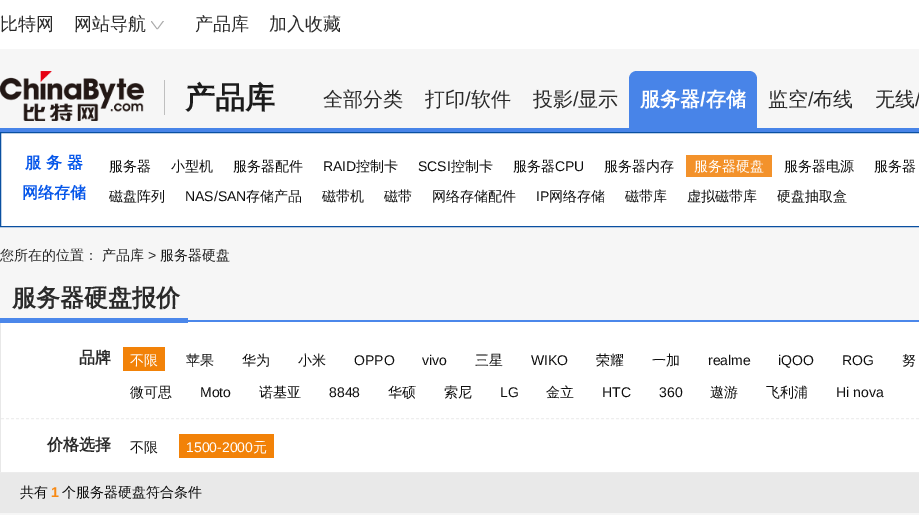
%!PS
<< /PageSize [919 515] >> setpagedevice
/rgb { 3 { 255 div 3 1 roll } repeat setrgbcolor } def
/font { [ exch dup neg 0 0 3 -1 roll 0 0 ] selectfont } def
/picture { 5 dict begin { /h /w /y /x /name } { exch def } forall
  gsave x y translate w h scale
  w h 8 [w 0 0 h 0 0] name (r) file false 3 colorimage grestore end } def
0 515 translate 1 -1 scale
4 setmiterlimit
246 246 246 rgb
0 0 919 515 rectfill
255 255 255 rgb
0 0 919 49 rectfill
(img/1.rgb) 151 21 13 9 picture
72 132 232 rgb
0 128 919 4 rectfill
(img/2.rgb) 0 71 144 50 picture
191 191 191 rgb
164 80 1 35 rectfill
72 132 232 rgb
637 71 moveto 749 71 lineto 753.5 71 757 74.5 757 79 curveto 757 128 lineto 629 128 lineto 629 79 lineto 629 74.5 632.5 71 637 71 curveto closepath fill
255 255 255 rgb
0.5 132.5 moveto 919.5 132.5 lineto 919.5 226.5 lineto 0.5 226.5 lineto closepath gsave fill grestore
10 80 161 rgb
stroke
[
  [686 155 86 22 243 146 43]
  [188 320 731 2 75 135 234]
  [1 322 918 150 255 255 255]
  [0 322 1 151 232 232 232]
  [0 318 188 5 75 135 234]
] { aload pop rgb rectfill } forall
238 238 238 rgb
[3 2] 0 setdash
1 418.5 moveto 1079 418.5 lineto stroke
[
  [123 347 42 24 242 130 8]
  [179 434 95 24 242 130 8]
  [0 473 919 40 233 233 233]
  [0 472 919 1 236 236 236]
] { aload pop rgb rectfill } forall
/WenQuanYiZenHei-Medium 18 font
42 42 42 rgb
[
  [(比特网) 0 30]
  [(网站导航) 74 30]
  [(产品库) 195 30]
  [(加入收藏) 269 30]
] { aload pop moveto show } forall
/WenQuanYiZenHei-Bold 30 font
28 28 28 rgb
185 108 moveto (产品库) show
/WenQuanYiZenHei-Medium 20 font
42 42 42 rgb
323 106 moveto (全部分类) show
425 106 moveto (打印) show
/LiberationSans-Regular 20 font
465 106 moveto (/) show
/WenQuanYiZenHei-Medium 20 font
471 106 moveto (软件) show
533 106 moveto (投影) show
/LiberationSans-Regular 20 font
573 106 moveto (/) show
/WenQuanYiZenHei-Medium 20 font
578 106 moveto (显示) show
/WenQuanYiZenHei-Bold 20 font
255 255 255 rgb
640 106 moveto (服务器) show
/LiberationSans-Bold 20 font
700 106 moveto (/) show
/WenQuanYiZenHei-Bold 20 font
706 106 moveto (存储) show
/WenQuanYiZenHei-Medium 20 font
42 42 42 rgb
768 106 moveto (监空) show
/LiberationSans-Regular 20 font
808 106 moveto (/) show
/WenQuanYiZenHei-Medium 20 font
813 106 moveto (布线) show
875 106 moveto (无线) show
/LiberationSans-Regular 20 font
915 106 moveto (/) show
/WenQuanYiZenHei-Bold 16 font
5 86 234 rgb
25 168 moveto (服 务 器) show
/WenQuanYiZenHei-Medium 14 font
14 14 14 rgb
[
  [(服务器) 109 171]
  [(小型机) 171 171]
  [(服务器配件) 233 171]
] { aload pop moveto show } forall
/LiberationSans-Regular 14 font
323 171 moveto (RAID) show
/WenQuanYiZenHei-Medium 14 font
356 171 moveto (控制卡) show
/LiberationSans-Regular 14 font
418 171 moveto (SCSI) show
/WenQuanYiZenHei-Medium 14 font
451 171 moveto (控制卡) show
513 171 moveto (服务器) show
/LiberationSans-Regular 14 font
555 171 moveto (CPU) show
/WenQuanYiZenHei-Medium 14 font
604 171 moveto (服务器内存) show
255 255 255 rgb
694 171 moveto (服务器硬盘) show
14 14 14 rgb
784 171 moveto (服务器电源) show
874 171 moveto (服务器) show
/WenQuanYiZenHei-Bold 16 font
5 86 234 rgb
22 198 moveto (网络存储) show
/WenQuanYiZenHei-Medium 14 font
14 14 14 rgb
109 201 moveto (磁盘阵列) show
/LiberationSans-Regular 14 font
185 201 moveto (NAS/SAN) show
/WenQuanYiZenHei-Medium 14 font
[
  [(存储产品) 246 201]
  [(磁带机) 322 201]
  [(磁带) 384 201]
  [(网络存储配件) 432 201]
] { aload pop moveto show } forall
/LiberationSans-Regular 14 font
536 201 moveto (IP) show
/WenQuanYiZenHei-Medium 14 font
[
  [(网络存储) 549 201]
  [(磁带库) 625 201]
  [(虚拟磁带库) 687 201]
  [(硬盘抽取盒) 777 201]
] { aload pop moveto show } forall
42 42 42 rgb
0 260 moveto (您所在的位置：) show
28 28 28 rgb
102 260 moveto (产品库) show
/LiberationSans-Regular 14 font
42 42 42 rgb
148 260 moveto (>) show
/WenQuanYiZenHei-Medium 14 font
28 28 28 rgb
160 260 moveto (服务器硬盘) show
/WenQuanYiZenHei-Bold 24 font
42 42 42 rgb
12 306 moveto (服务器硬盘报价) show
/WenQuanYiZenHei-Bold 16 font
79 363 moveto (品牌) show
/WenQuanYiZenHei-Medium 14 font
255 255 255 rgb
130 365 moveto (不限) show
14 14 14 rgb
[
  [(苹果) 186 365]
  [(华为) 242 365]
  [(小米) 298 365]
] { aload pop moveto show } forall
/LiberationSans-Regular 14 font
354 365 moveto (OPPO) show
422 365 moveto (vivo) show
/WenQuanYiZenHei-Medium 14 font
475 365 moveto (三星) show
/LiberationSans-Regular 14 font
531 365 moveto (WIKO) show
/WenQuanYiZenHei-Medium 14 font
596 365 moveto (荣耀) show
652 365 moveto (一加) show
/LiberationSans-Regular 14 font
[
  [(realme) 708 365]
  [(iQOO) 778 365]
  [(ROG) 842 365]
] { aload pop moveto show } forall
/WenQuanYiZenHei-Medium 14 font
902 365 moveto (努) show
130 397 moveto (微可思) show
/LiberationSans-Regular 14 font
200 397 moveto (Moto) show
/WenQuanYiZenHei-Medium 14 font
259 397 moveto (诺基亚) show
/LiberationSans-Regular 14 font
329 397 moveto (8848) show
/WenQuanYiZenHei-Medium 14 font
388 397 moveto (华硕) show
444 397 moveto (索尼) show
/LiberationSans-Regular 14 font
500 397 moveto (LG) show
/WenQuanYiZenHei-Medium 14 font
546 397 moveto (金立) show
/LiberationSans-Regular 14 font
602 397 moveto (HTC) show
659 397 moveto (360) show
/WenQuanYiZenHei-Medium 14 font
710 397 moveto (遨游) show
766 397 moveto (飞利浦) show
/LiberationSans-Regular 14 font
836 397 moveto (Hi nova) show
/WenQuanYiZenHei-Bold 16 font
42 42 42 rgb
47 450 moveto (价格选择) show
/WenQuanYiZenHei-Medium 14 font
14 14 14 rgb
130 452 moveto (不限) show
/LiberationSans-Regular 14 font
255 255 255 rgb
186 452 moveto (1500-2000) show
/WenQuanYiZenHei-Medium 14 font
253 452 moveto (元) show
14 14 14 rgb
20 497 moveto (共有) show
/LiberationSans-Bold 14 font
248 137 18 rgb
51 497 moveto (1) show
/WenQuanYiZenHei-Medium 14 font
14 14 14 rgb
62 497 moveto (个服务器硬盘符合条件) show
showpage
